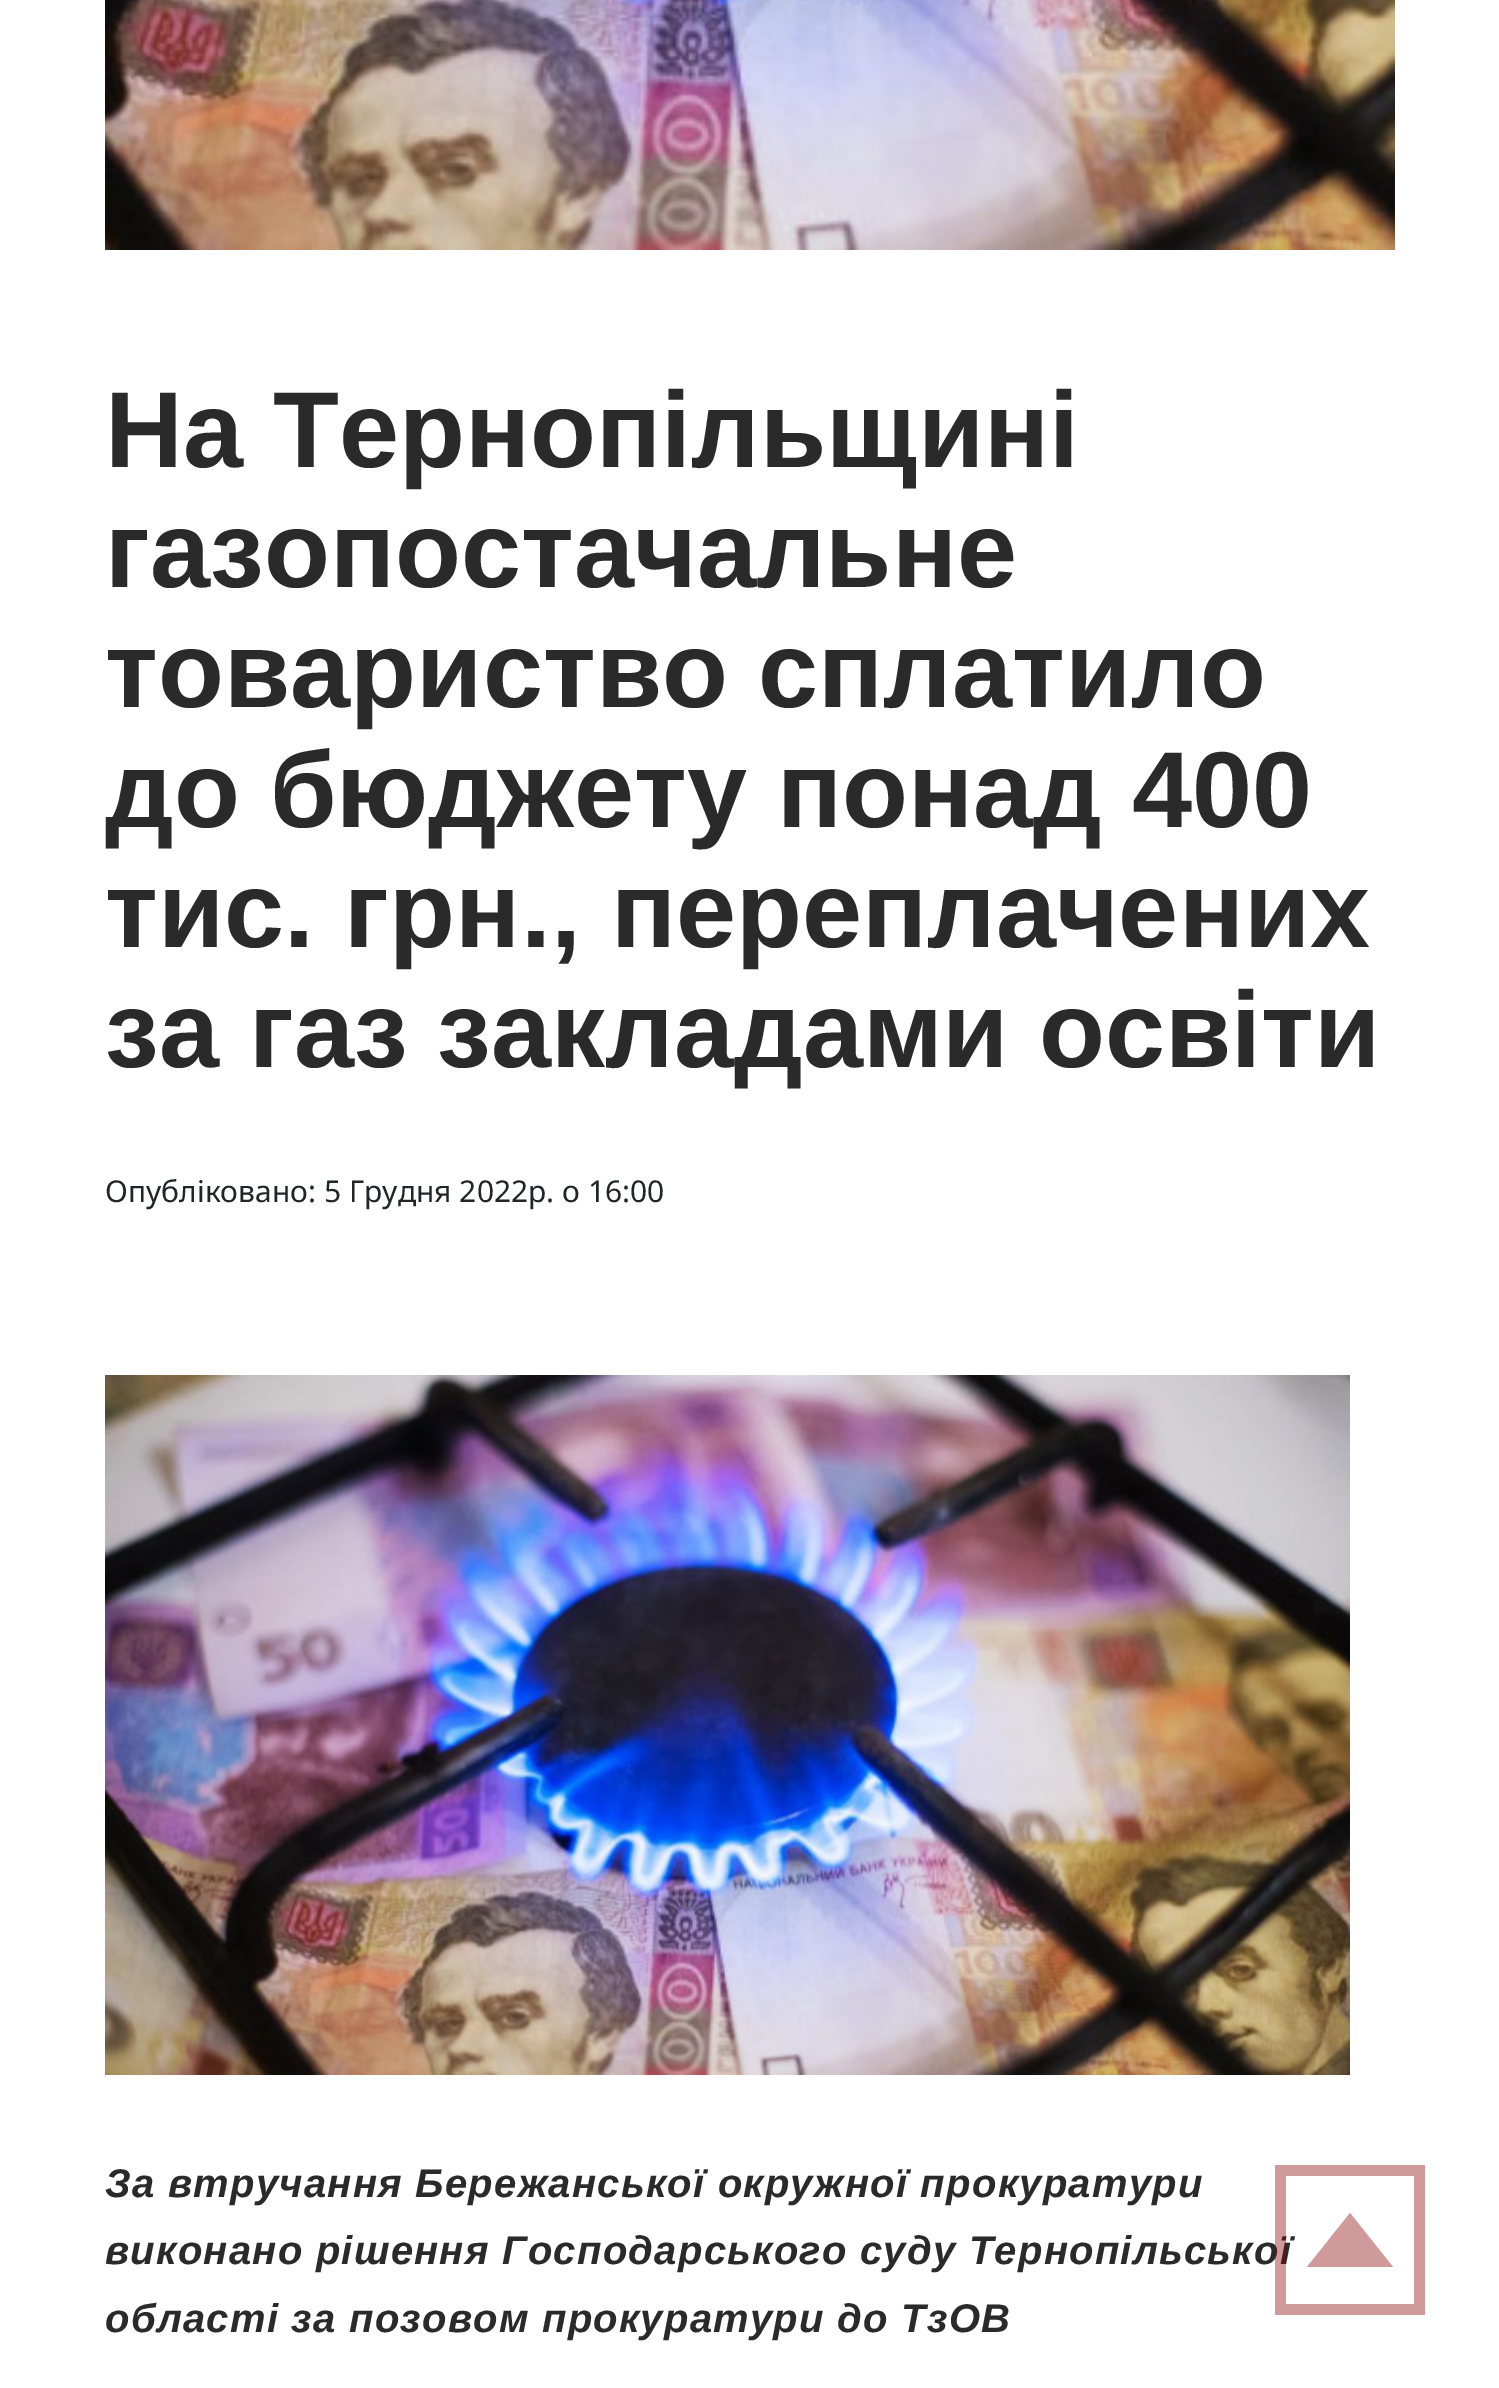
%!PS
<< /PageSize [1499 2388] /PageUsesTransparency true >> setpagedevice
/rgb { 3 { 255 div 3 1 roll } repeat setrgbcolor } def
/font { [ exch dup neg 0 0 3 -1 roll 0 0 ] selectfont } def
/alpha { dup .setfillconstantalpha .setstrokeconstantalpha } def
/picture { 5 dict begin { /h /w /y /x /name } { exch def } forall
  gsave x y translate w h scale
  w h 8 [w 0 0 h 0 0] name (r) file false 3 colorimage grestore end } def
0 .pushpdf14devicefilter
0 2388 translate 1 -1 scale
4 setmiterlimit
255 255 255 rgb
0 0 1499 2388 rectfill
(img/1.rgb) 105 0 1290 250 picture
(img/2.rgb) 105 1375 1245 700 picture
/LiberationSans-Bold 108 font
42 42 42 rgb
[
  [(На Тернопільщині) 105 467]
  [(газопостачальне) 105 587]
  [(товариство сплатило) 105 707]
  [(до бюджету понад 400) 105 827]
  [(тис. грн., переплачених) 105 947]
  [(за газ закладами освіти) 105 1067]
] { aload pop moveto show } forall
/NotoSans-Regular 30 font
33 37 41 rgb
105 1202 moveto (Опубліковано: 5 Грудня 2022р. о 16:00) show
/LiberationSans-BoldItalic 40 font
42 42 42 rgb
105 2197 moveto 1.25 0 (За втручання Бережанської окружної прокуратури) ashow
105 2264 moveto 1.25 0 (виконано рішення Господарського суду Тернопільської) ashow
105 2332 moveto 1.25 0 (області за позовом прокуратури до ТзОВ) ashow
0.4 alpha
138 3 3 rgb
1425 2165 moveto 1275 2165 lineto 1275 2315 lineto 1425 2315 lineto closepath 1414 2304 moveto 1286 2304 lineto 1286 2176 lineto 1414 2176 lineto closepath fill
1 alpha
208 154 154 rgb
1393 2267 moveto 1307 2267 lineto 1350 2213 lineto closepath fill
.poppdf14devicefilter showpage
